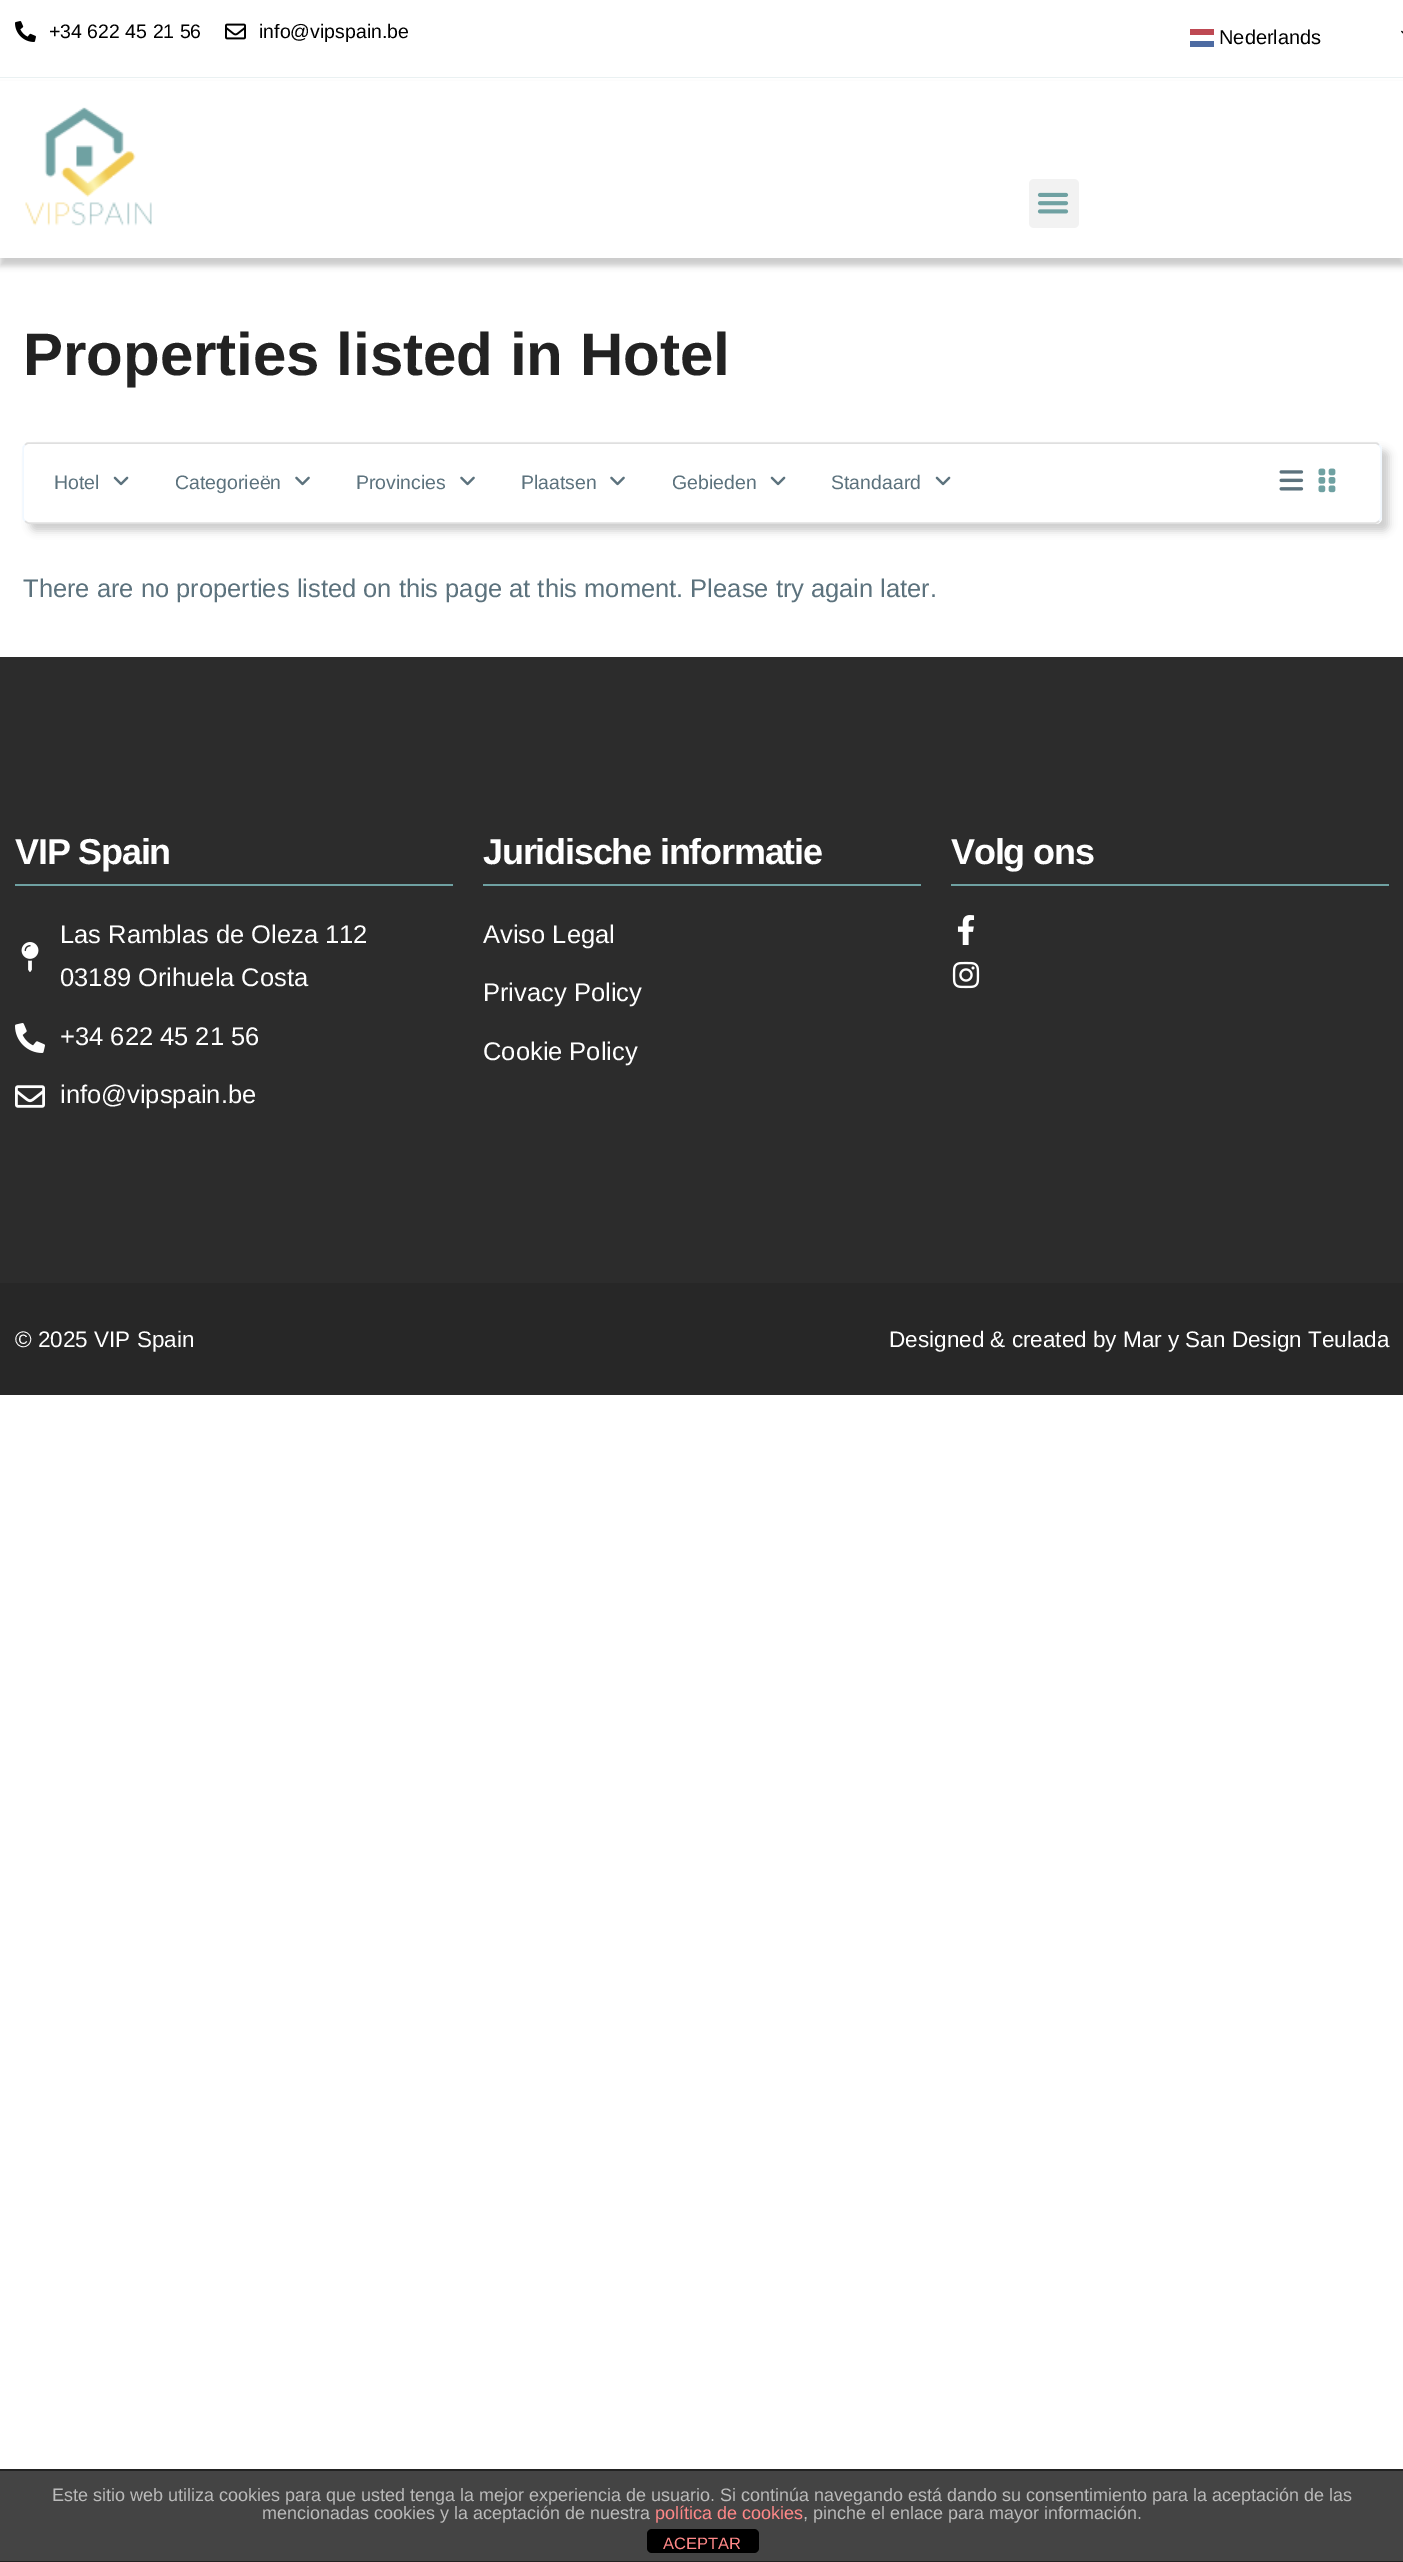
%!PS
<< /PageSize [1403 2562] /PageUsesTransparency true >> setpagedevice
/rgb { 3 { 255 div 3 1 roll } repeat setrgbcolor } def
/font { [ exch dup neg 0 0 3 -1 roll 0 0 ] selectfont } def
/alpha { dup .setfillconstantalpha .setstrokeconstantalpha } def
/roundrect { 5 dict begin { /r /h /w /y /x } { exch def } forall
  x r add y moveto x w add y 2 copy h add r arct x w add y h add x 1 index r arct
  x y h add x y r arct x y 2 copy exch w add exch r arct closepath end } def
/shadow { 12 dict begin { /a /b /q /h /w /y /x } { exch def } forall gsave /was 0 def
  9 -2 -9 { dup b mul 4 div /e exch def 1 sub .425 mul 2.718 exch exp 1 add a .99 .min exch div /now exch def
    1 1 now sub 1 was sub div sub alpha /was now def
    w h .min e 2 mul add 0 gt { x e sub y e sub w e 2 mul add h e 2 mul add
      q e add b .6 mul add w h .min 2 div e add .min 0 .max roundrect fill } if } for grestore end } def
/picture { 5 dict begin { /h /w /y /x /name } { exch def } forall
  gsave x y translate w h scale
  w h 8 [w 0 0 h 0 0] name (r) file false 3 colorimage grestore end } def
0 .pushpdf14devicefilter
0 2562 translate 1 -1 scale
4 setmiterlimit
255 255 255 rgb
0 0 1403 2562 rectfill
234 241 242 rgb
0 77 1403 1 rectfill
(img/1.rgb) 15 21 21 21 picture
(img/2.rgb) 225 23 21 17 picture
190 73 83 rgb
1190 29 24 6 rectfill
(img/3.rgb) 1401 30 2 4 picture
77 107 162 rgb
1190 41 24 6 rectfill
0 0 0 rgb
0 86 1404 180 0 3 0.2 shadow
255 255 255 rgb
0 81 1403 177 rectfill
(img/4.rgb) 25 107 127 119 picture
242 242 242 rgb
1029 179 50 49 5 roundrect fill
(img/5.rgb) 1037 192 32 22 picture
204 204 204 rgb
30 450 1359 81 6 4 1 shadow
255 255 255 rgb
23 443 1359 81 6 roundrect fill
223 223 223 rgb
1.5 setlinewidth
25 445 moveto 26 444 27 443 28.5 443 curveto 1375.5 443 lineto 1377 443 1378 444 1379 445 curveto stroke
241 248 255 rgb
1379 445 moveto 1380 446 1381 447 1381 448.5 curveto 1381 517.5 lineto 1381 519 1380 520 1379 521 curveto stroke
223 223 223 rgb
1379 521 moveto 1378 522 1377 523 1375.5 523 curveto 28.5 523 lineto 27 523 26 522 25 521 curveto stroke
241 248 255 rgb
25 521 moveto 24 520 23 519 23 517.5 curveto 23 448.5 lineto 23 447 24 446 25 445 curveto stroke
(img/6.rgb) 113 476 16 10 picture
(img/7.rgb) 295 476 15 10 picture
(img/7.rgb) 460 476 15 10 picture
(img/7.rgb) 610 476 15 10 picture
(img/6.rgb) 770 476 16 10 picture
(img/6.rgb) 935 476 16 10 picture
(img/8.rgb) 1279 470 25 21 picture
(img/9.rgb) 1318 468 18 25 picture
44 44 44 rgb
0 657 1403 626 rectfill
111 161 162 rgb
15 884 438 2 rectfill
(img/10.rgb) 21 942 18 30 picture
(img/11.rgb) 15 1023 30 30 picture
(img/12.rgb) 15 1085 30 23 picture
483 884 438 2 rectfill
951 884 438 2 rectfill
(img/13.rgb) 957 915 18 30 picture
(img/14.rgb) 952 961 28 28 picture
[
  [0 1283 1403 112 39 39 39]
  [0 2471 1403 90 68 68 68]
  [0 2469 1403 2 34 34 34]
  [0 2561 1403 1 34 34 34]
] { aload pop rgb rectfill } forall
0 0 0 rgb
647 2529 112 24 5 roundrect fill
/LiberationSans-Regular 19.5 font
49 38 moveto (+34 622 45 21 56) show
259 38 moveto (info@vipspain.be) show
/LiberationSans-Regular 20 font
1219 44 moveto (Nederlands) show
/LiberationSans-Bold 60 font
34 34 34 rgb
23 375 moveto (Properties listed in Hotel) show
/LiberationSans-Regular 19.5 font
92 114 125 rgb
[
  [(Hotel) 54 489]
  [(Categorieën) 175 489]
  [(Provincies) 356 489]
  [(Plaatsen) 521 489]
  [(Gebieden) 672 489]
  [(Standaard) 831 489]
] { aload pop moveto show } forall
/LiberationSans-Regular 25.5 font
23 597 moveto (There are no properties listed on this page at this moment. Please try again later.) show
/LiberationSans-Bold 36 font
255 255 255 rgb
15 864 moveto -1.2 0 (VIP Spain) ashow
/LiberationSans-Regular 25.5 font
[
  [(Las Ramblas de Oleza 112) 60 943]
  [(03189 Orihuela Costa) 60 986]
  [(+34 622 45 21 56) 60 1045]
  [(info@vipspain.be) 60 1103]
] { aload pop moveto show } forall
/LiberationSans-Bold 36 font
483 864 moveto -1.2 0 (Juridische informatie) ashow
/LiberationSans-Regular 25.5 font
[
  [(Aviso Legal) 483 943]
  [(Privacy Policy) 483 1001]
  [(Cookie Policy) 483 1060]
] { aload pop moveto show } forall
/LiberationSans-Bold 36 font
951 864 moveto -1.2 0 (Volg ons) ashow
/LiberationSans-Regular 22.5 font
15 1347 moveto (© 2025 VIP Spain) show
889 1347 moveto (Designed & created by Mar y San Design Teulada) show
/LiberationSans-Regular 18 font
187 187 187 rgb
52 2501 moveto (Este sitio web utiliza cookies para que usted tenga la mejor experiencia de usuario. Si continúa navegando está dando su consentimiento para la aceptación de las) show
262 2519 moveto (mencionadas cookies y la aceptación de nuestra) show
255 136 136 rgb
655 2519 moveto (política de cookies) show
187 187 187 rgb
803 2519 moveto (, pinche el enlace para mayor información.) show
/LiberationSans-Regular 16.5 font
255 136 136 rgb
663 2549 moveto (ACEPTAR) show
.poppdf14devicefilter showpage
